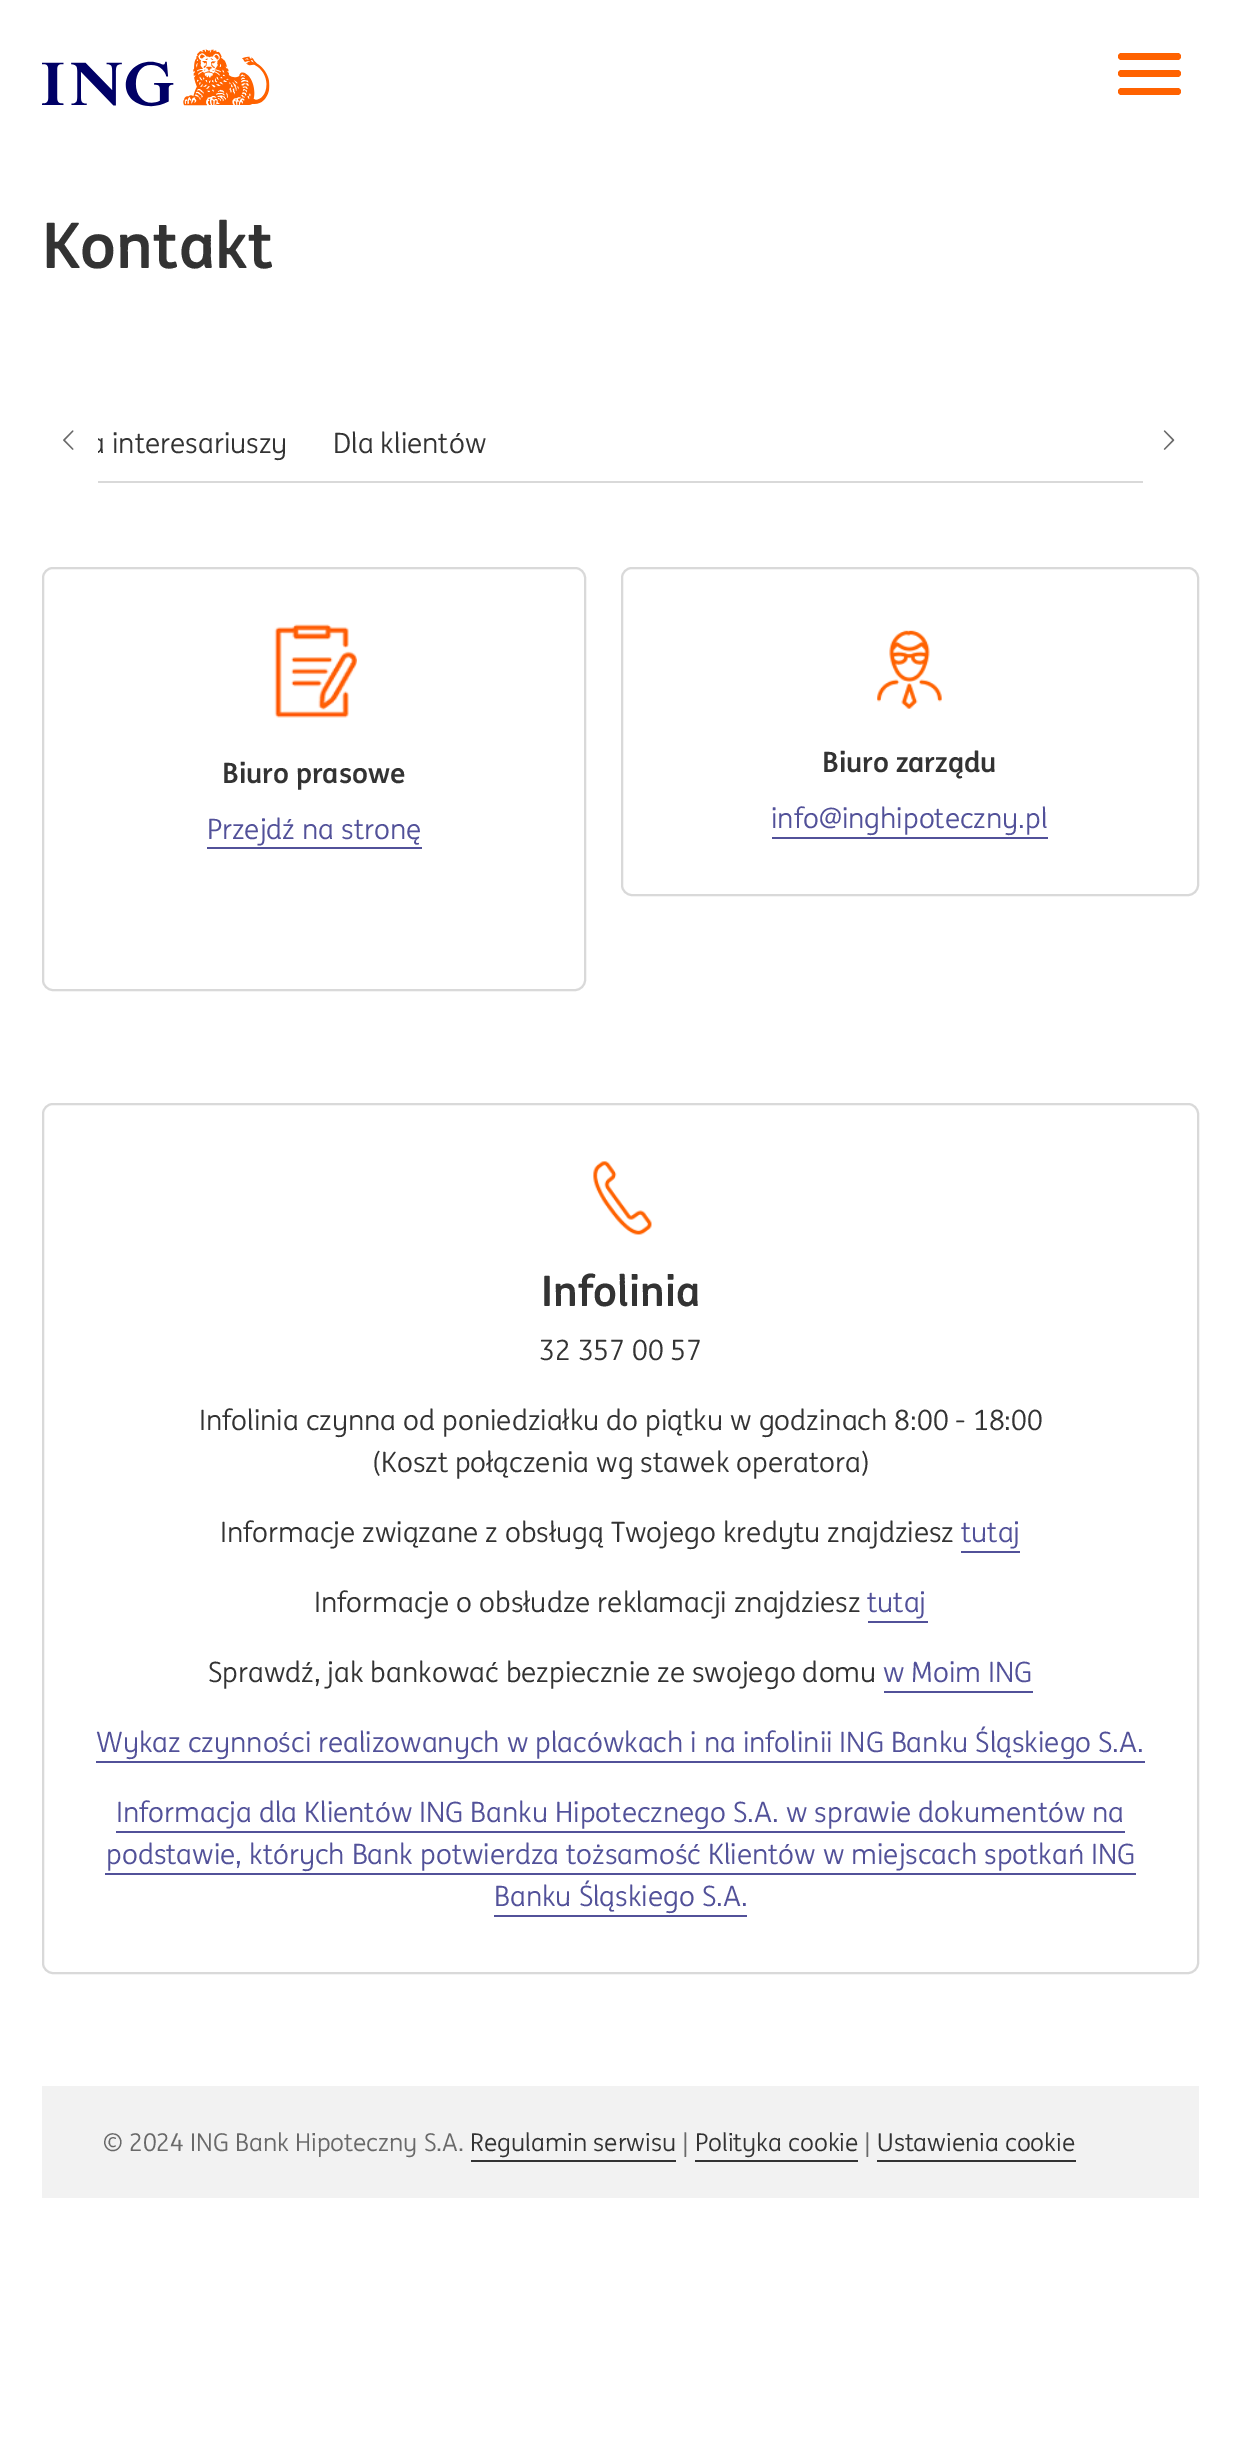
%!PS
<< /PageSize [1240 2451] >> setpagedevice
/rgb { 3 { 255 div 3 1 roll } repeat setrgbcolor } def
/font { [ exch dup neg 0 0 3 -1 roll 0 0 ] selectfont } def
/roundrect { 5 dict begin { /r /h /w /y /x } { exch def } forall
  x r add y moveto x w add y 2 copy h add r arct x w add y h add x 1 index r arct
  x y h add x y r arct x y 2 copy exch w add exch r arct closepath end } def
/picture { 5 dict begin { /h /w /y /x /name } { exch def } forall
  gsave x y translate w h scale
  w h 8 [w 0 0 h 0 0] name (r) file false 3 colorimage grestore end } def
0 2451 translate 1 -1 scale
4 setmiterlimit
255 255 255 rgb
0 0 1240 2451 rectfill
(img/1.rgb) 42 49 228 58 picture
255 98 0 rgb
1118 70 63 7 3.5 roundrect fill
1118 53 63 7 3.5 roundrect fill
1118 88 63 7 3.5 roundrect fill
(img/2.rgb) 63 430 11 20 picture
217 217 217 rgb
98 481 1045 2 rectfill
(img/3.rgb) 1163 430 12 20 picture
2 setlinewidth
43 568 542 422 10 roundrect stroke
(img/4.rgb) 274 624 83 94 picture
82 81 153 rgb
207 847 215 2 rectfill
217 217 217 rgb
622 568 576 327 10 roundrect stroke
(img/5.rgb) 877 630 65 79 picture
82 81 153 rgb
772 837 276 2 rectfill
217 217 217 rgb
43 1104 1155 869 10 roundrect stroke
(img/6.rgb) 593 1161 59 74 picture
[
  [961 1551 59 2 82 81 153]
  [868 1621 60 2 82 81 153]
  [884 1691 149 2 82 81 153]
  [96 1761 1049 2 82 81 153]
  [116 1831 1009 2 82 81 153]
  [105 1873 1031 2 82 81 153]
  [494 1915 253 2 82 81 153]
  [42 2086 1157 112 242 242 242]
  [471 2160 205 2 51 51 51]
  [695 2160 163 2 51 51 51]
  [877 2160 199 2 51 51 51]
] { aload pop rgb rectfill } forall
/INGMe-Bold 63 font
42 268 moveto (Kontakt) show
/INGMe-Regular 28 font
89 453 moveto (a interesariuszy) show
255 255 255 rgb
90 437 8 17 rectfill
51 51 51 rgb
333 453 moveto (Dla klientów) show
/INGMe-Bold 28 font
222 783 moveto (Biuro prasowe) show
/INGMe-Regular 28 font
82 81 153 rgb
207 839 moveto (Przejdź na stronę) show
/INGMe-Bold 28 font
51 51 51 rgb
822 772 moveto (Biuro zarządu) show
/INGMe-Regular 28 font
82 81 153 rgb
771 828 moveto (info@inghipoteczny.pl) show
/INGMe-Bold 42 font
51 51 51 rgb
541 1306 moveto (Infolinia) show
/INGMe-Regular 28 font
[
  [(32 357 00 57) 539 1360]
  [(Infolinia czynna od poniedziałku do piątku w godzinach 8:00 - 18:00) 199 1430]
  [(\(Koszt połączenia wg stawek operatora\)) 372 1472]
  [(Informacje związane z obsługą Twojego kredytu znajdziesz) 220 1542]
] { aload pop moveto show } forall
82 81 153 rgb
961 1542 moveto (tutaj) show
51 51 51 rgb
314 1612 moveto (Informacje o obsłudze reklamacji znajdziesz) show
82 81 153 rgb
867 1612 moveto (tutaj) show
51 51 51 rgb
208 1682 moveto (Sprawdź, jak bankować bezpiecznie ze swojego domu) show
82 81 153 rgb
[
  [(w Moim ING) 883 1682]
  [(Wykaz czynności realizowanych w placówkach i na infolinii ING Banku Śląskiego S.A.) 96 1752]
  [(Informacja dla Klientów ING Banku Hipotecznego S.A. w sprawie dokumentów na) 116 1822]
  [(podstawie, których Bank potwierdza tożsamość Klientów w miejscach spotkań ING) 106 1864]
  [(Banku Śląskiego S.A.) 494 1906]
] { aload pop moveto show } forall
/INGMe-Regular 24.5 font
105 105 105 rgb
103 2151 moveto (© 2024 ING Bank Hipoteczny S.A.) show
51 51 51 rgb
470 2151 moveto (Regulamin serwisu) show
105 105 105 rgb
682 2151 moveto (|) show
51 51 51 rgb
695 2151 moveto (Polityka cookie) show
105 105 105 rgb
864 2151 moveto (|) show
51 51 51 rgb
877 2151 moveto (Ustawienia cookie) show
showpage
